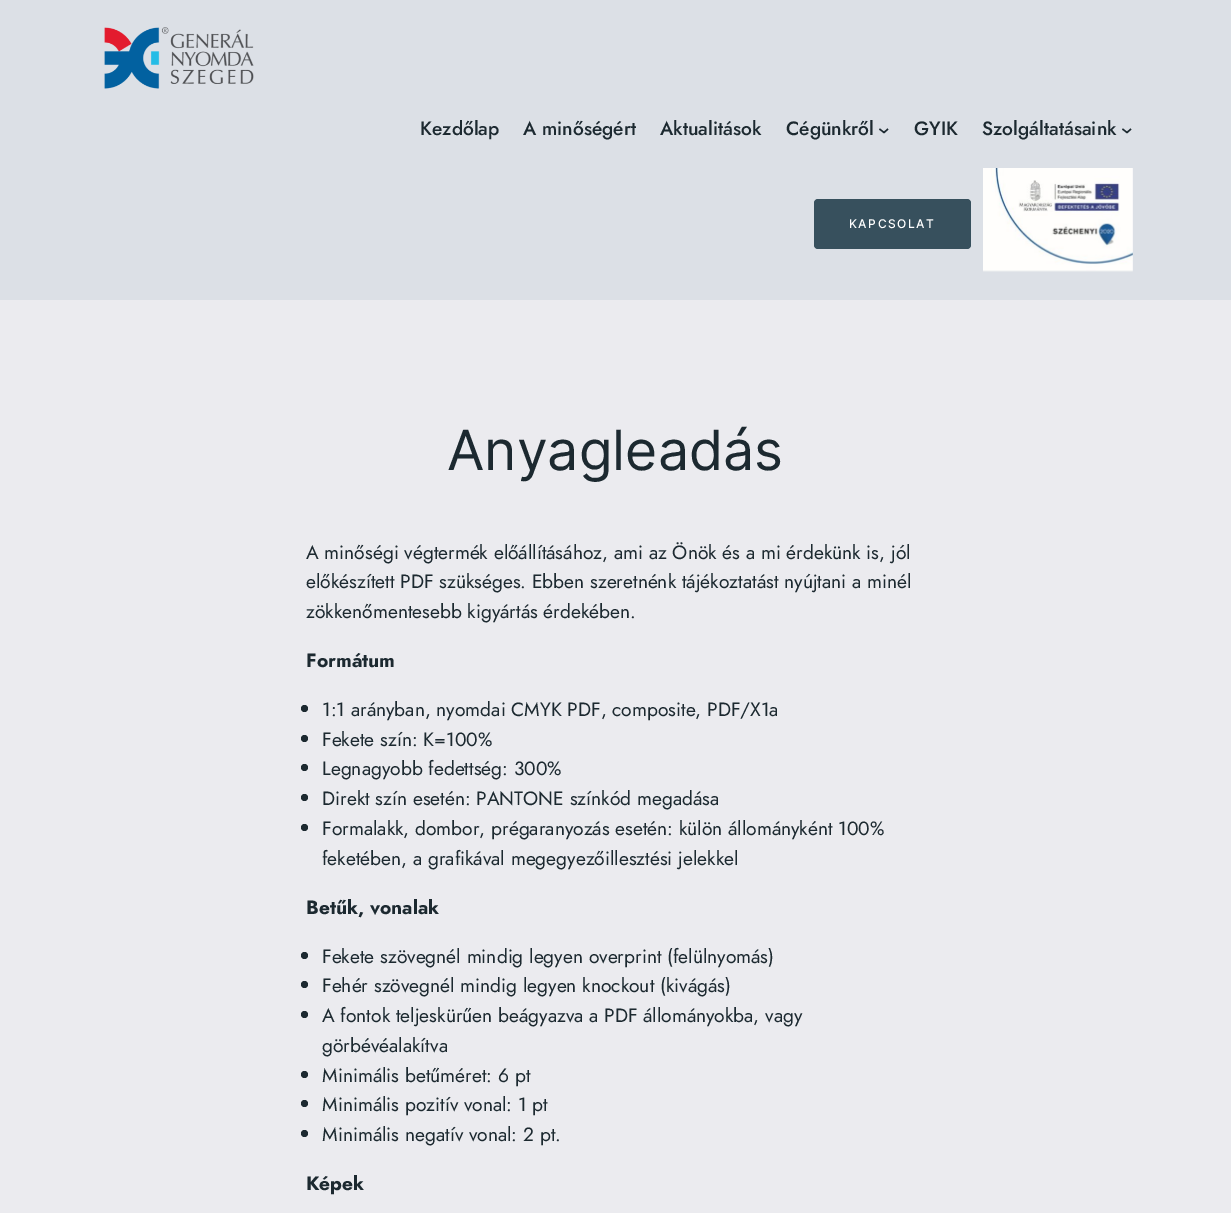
%!PS
<< /PageSize [1231 1213] >> setpagedevice
/rgb { 3 { 255 div 3 1 roll } repeat setrgbcolor } def
/font { [ exch dup neg 0 0 3 -1 roll 0 0 ] selectfont } def
/circle { newpath 0 360 arc closepath } def
/roundrect { 5 dict begin { /r /h /w /y /x } { exch def } forall
  x r add y moveto x w add y 2 copy h add r arct x w add y h add x 1 index r arct
  x y h add x y r arct x y 2 copy exch w add exch r arct closepath end } def
/picture { 5 dict begin { /h /w /y /x /name } { exch def } forall
  gsave x y translate w h scale
  w h 8 [w 0 0 h 0 0] name (r) file false 3 colorimage grestore end } def
0 1213 translate 1 -1 scale
4 setmiterlimit
235 235 239 rgb
0 0 1231 1213 rectfill
220 224 230 rgb
0 0 1231 300 rectfill
(img/1.rgb) 104 27 150 62 picture
28 41 48 rgb
1.4 setlinewidth
879.5 129 moveto 884 132.5 lineto 888 129 lineto stroke
1122.5 129 moveto 1127 132.5 lineto 1131 129 lineto stroke
55 80 93 rgb
814 199 157 50 4 roundrect fill
(img/2.rgb) 983 168 150 104 picture
28 41 48 rgb
304.5 708.5 3.5 circle fill
304.5 738.5 3.5 circle fill
304.5 767.5 3.5 circle fill
304.5 797.5 3.5 circle fill
304.5 827.5 3.5 circle fill
304.5 955.5 3.5 circle fill
304.5 984.5 3.5 circle fill
304.5 1014.5 3.5 circle fill
304.5 1074.5 3.5 circle fill
304.5 1103.5 3.5 circle fill
304.5 1133.5 3.5 circle fill
/Jost-Medium 19.2 font
[
  [(Kezdőlap) 420 135]
  [(A minőségért) 523 135]
  [(Aktualitások) 660 135]
  [(Cégünkről) 786 135]
  [(GYIK) 914 135]
  [(Szolgáltatásaink) 982 135]
] { aload pop moveto show } forall
/Inter-Medium 12 font
255 255 255 rgb
849 228 moveto 1.5 0 (KAPCSOLAT) ashow
/Inter-Regular 55.25 font
28 41 48 rgb
447 470 moveto (Anyagleadás) show
/Jost-Regular 19.2 font
[
  [(A minőségi végtermék előállításához, ami az Önök és a mi érdekünk is, jól) 306 559]
  [(előkészített PDF szükséges. Ebben szeretnénk tájékoztatást nyújtani a minél) 306 588]
  [(zökkenőmentesebb kigyártás érdekében.) 306 618]
] { aload pop moveto show } forall
/Jost-Bold 19.2 font
306 667 moveto (Formátum) show
/Jost-Regular 19.2 font
[
  [(1:1 arányban, nyomdai CMYK PDF, composite, PDF/X1a) 322 716]
  [(Fekete szín: K=100%) 322 746]
  [(Legnagyobb fedettség: 300%) 322 775]
  [(Direkt szín esetén: PANTONE színkód megadása) 322 805]
  [(Formalakk, dombor, prégaranyozás esetén: külön állományként 100%) 322 835]
  [(feketében, a grafikával megegyezőillesztési jelekkel) 322 865]
] { aload pop moveto show } forall
/Jost-Bold 19.2 font
306 914 moveto (Betűk, vonalak) show
/Jost-Regular 19.2 font
[
  [(Fekete szövegnél mindig legyen overprint \(felülnyomás\)) 322 963]
  [(Fehér szövegnél mindig legyen knockout \(kivágás\)) 322 992]
  [(A fontok teljeskürűen beágyazva a PDF állományokba, vagy) 322 1022]
  [(görbévéalakítva) 322 1052]
  [(Minimális betűméret: 6 pt) 322 1082]
  [(Minimális pozitív vonal: 1 pt) 322 1111]
  [(Minimális negatív vonal: 2 pt.) 322 1141]
] { aload pop moveto show } forall
/Jost-Bold 19.2 font
306 1190 moveto (Képek) show
showpage
